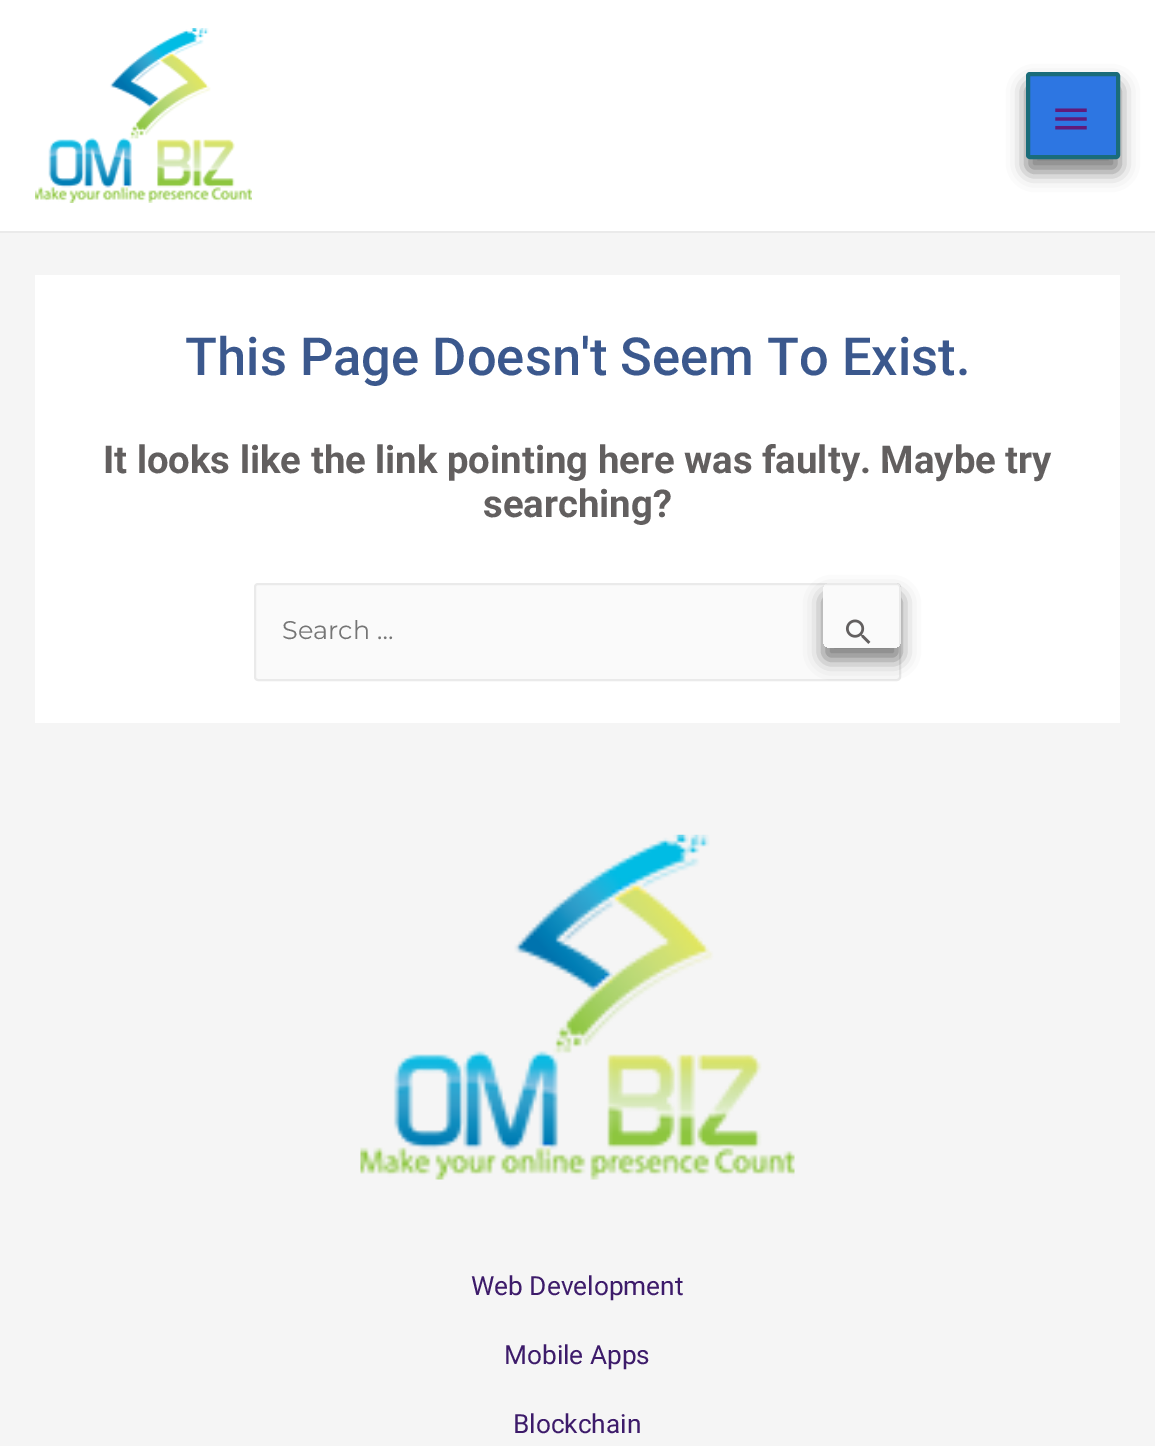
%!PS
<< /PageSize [1155 1446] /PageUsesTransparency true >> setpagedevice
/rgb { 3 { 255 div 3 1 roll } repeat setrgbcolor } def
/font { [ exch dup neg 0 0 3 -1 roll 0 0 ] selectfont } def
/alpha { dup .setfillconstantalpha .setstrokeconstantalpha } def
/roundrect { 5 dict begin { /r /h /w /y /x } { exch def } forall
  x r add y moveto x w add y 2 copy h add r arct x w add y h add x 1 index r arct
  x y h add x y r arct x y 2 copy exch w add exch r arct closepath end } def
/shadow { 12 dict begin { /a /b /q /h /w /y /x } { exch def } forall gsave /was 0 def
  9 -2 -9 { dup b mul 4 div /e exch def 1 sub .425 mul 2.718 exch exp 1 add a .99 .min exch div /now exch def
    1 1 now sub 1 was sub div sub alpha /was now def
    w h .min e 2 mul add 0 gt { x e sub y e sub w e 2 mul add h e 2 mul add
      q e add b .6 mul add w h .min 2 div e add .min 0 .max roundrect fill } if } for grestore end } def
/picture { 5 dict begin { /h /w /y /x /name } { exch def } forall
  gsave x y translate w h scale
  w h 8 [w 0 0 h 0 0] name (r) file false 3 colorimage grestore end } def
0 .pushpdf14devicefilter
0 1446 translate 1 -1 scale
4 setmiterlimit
245 245 245 rgb
0 0 1155 1446 rectfill
255 255 255 rgb
0 0 1155 231 rectfill
234 234 234 rgb
0 231 1155 2 rectfill
(img/1.rgb) 35 28 217 175 picture
0 0 0 rgb
1026 84 94 88 4 9 0.5 shadow
45 118 226 rgb
1028 74 90 83 2 roundrect gsave fill grestore
26 108 122 rgb
4 setlinewidth
stroke
(img/2.rgb) 1055 108 32 22 picture
255 255 255 rgb
35 275 1085 448 rectfill
250 250 250 rgb
255 584 645 96 3 roundrect gsave fill grestore
234 234 234 rgb
2 setlinewidth
stroke
(img/3.rgb) 845 619 26 25 picture
gsave
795 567 moveto 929 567 lineto 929 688 lineto 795 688 lineto closepath 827 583 moveto 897 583 lineto 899 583 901 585 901 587 curveto 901 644 lineto 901 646 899 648 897 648 curveto 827 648 lineto 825 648 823 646 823 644 curveto 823 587 lineto 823 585 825 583 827 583 curveto closepath eoclip newpath
0 0 0 rgb
823 595 78 65 4 9 0.5 shadow
grestore
(img/4.rgb) 360 834 435 346 picture
/Roboto-Medium 52.5 font
59 88 141 rgb
185 375 moveto (This Page Doesn't Seem To Exist.) show
/Roboto-Bold 38.3 font
98 95 95 rgb
103 473 moveto (It looks like the link pointing here was faulty. Maybe try) show
483 517 moveto (searching?) show
/Montserrat-Regular 25.5 font
117 117 117 rgb
282 639 moveto (Search …) show
/Roboto-Regular 26.25 font
61 27 106 rgb
[
  [(Web Development) 471 1295]
  [(Mobile Apps) 504 1364]
  [(Blockchain) 513 1433]
] { aload pop moveto show } forall
.poppdf14devicefilter showpage
